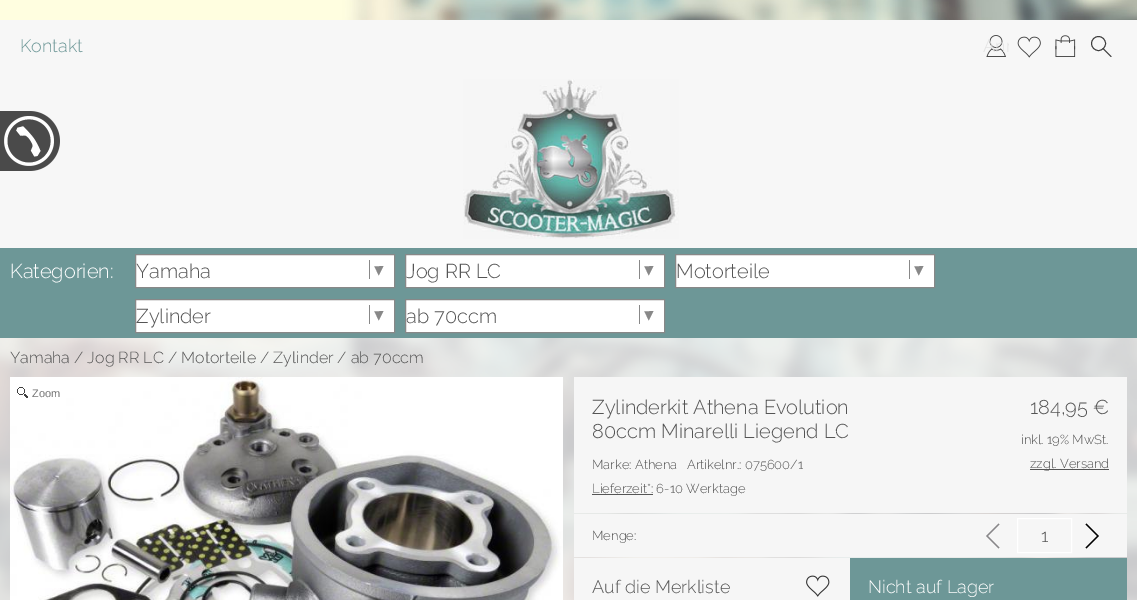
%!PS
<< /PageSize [1137 600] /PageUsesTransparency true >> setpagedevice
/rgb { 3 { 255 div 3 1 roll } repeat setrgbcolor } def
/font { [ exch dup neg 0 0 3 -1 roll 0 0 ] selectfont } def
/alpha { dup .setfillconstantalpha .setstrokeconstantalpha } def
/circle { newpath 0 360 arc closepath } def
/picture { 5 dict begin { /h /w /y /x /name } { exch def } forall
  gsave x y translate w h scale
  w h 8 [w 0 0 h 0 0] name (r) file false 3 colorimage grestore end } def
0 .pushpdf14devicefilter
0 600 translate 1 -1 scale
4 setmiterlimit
255 255 255 rgb
0 0 1137 600 rectfill
(img/1.rgb) 0 0 1137 600 picture
247 247 247 rgb
0 20 1137 228 rectfill
(img/2.rgb) 463 79 216 160 picture
(img/3.rgb) 986 35 20 22 picture
(img/4.rgb) 1017 36 24 22 picture
(img/5.rgb) 1055 35 21 22 picture
63 63 63 rgb
0.9 setlinewidth
1098.5 43.5 7 circle stroke
1 setlinecap
1103 48.5 moveto 1111 56.5 lineto stroke
109 151 151 rgb
0 248 1137 90 rectfill
255 255 255 rgb
135.5 254.5 moveto 394.5 254.5 lineto 394.5 287.5 lineto 135.5 287.5 lineto closepath gsave fill grestore
136 136 136 rgb
1 setlinewidth
0 setlinecap
stroke
369 260 1 19 rectfill
255 255 255 rgb
405.5 254.5 moveto 664.5 254.5 lineto 664.5 287.5 lineto 405.5 287.5 lineto closepath gsave fill grestore
136 136 136 rgb
stroke
639 260 1 19 rectfill
255 255 255 rgb
675.5 254.5 moveto 934.5 254.5 lineto 934.5 287.5 lineto 675.5 287.5 lineto closepath gsave fill grestore
136 136 136 rgb
stroke
909 260 1 19 rectfill
255 255 255 rgb
135.5 299.5 moveto 394.5 299.5 lineto 394.5 332.5 lineto 135.5 332.5 lineto closepath gsave fill grestore
136 136 136 rgb
stroke
369 305 1 19 rectfill
255 255 255 rgb
405.5 299.5 moveto 664.5 299.5 lineto 664.5 332.5 lineto 405.5 332.5 lineto closepath gsave fill grestore
136 136 136 rgb
stroke
[
  [639 305 1 19 136 136 136]
] { aload pop rgb rectfill } forall
0.79 alpha
[
  [0 338 1137 29 247 247 247]
  [0 367 1137 233 247 247 247]
] { aload pop rgb rectfill } forall
1 alpha
(img/6.rgb) 10 377 553 223 picture
(img/7.rgb) 17 387 11 11 picture
[
  [574 377 553 136 246 246 246]
  [592 494 61 1 85 85 85]
  [1030 469 79 1 85 85 85]
  [574 514 553 43 246 246 246]
] { aload pop rgb rectfill } forall
136 135 137 rgb
1.1 setlinewidth
999 524 moveto 987 536 lineto 999 548 lineto stroke
255 255 255 rgb
1 setlinewidth
1017.5 518.5 54 34 rectstroke
0 0 0 rgb
1.1 setlinewidth
1086 524 moveto 1098 536 lineto 1086 548 lineto stroke
246 246 246 rgb
574 558 276 42 rectfill
(img/8.rgb) 806 575 24 22 picture
109 151 151 rgb
850 558 277 42 rectfill
(img/9.rgb) 0 111 60 60 picture
/Raleway-Light 18 font
20 52 moveto (Kontakt) show
gsave
983 33 26 26 rectclip
226 226 226 rgb
983 52 moveto (Anm) show
grestore
/Raleway-Light 20 font
255 255 255 rgb
10 278 moveto (Kategorien:) show
85 85 85 rgb
136 278 moveto (Yamaha) show
/DejaVuSansMono-Regular 16 font
136 136 136 rgb
374 275 moveto (▼) show
/Raleway-Light 20 font
85 85 85 rgb
406 278 moveto (Jog RR LC) show
/DejaVuSansMono-Regular 16 font
136 136 136 rgb
644 275 moveto (▼) show
/Raleway-Light 20 font
85 85 85 rgb
676 278 moveto (Motorteile) show
/DejaVuSansMono-Regular 16 font
136 136 136 rgb
914 275 moveto (▼) show
/Raleway-Light 20 font
85 85 85 rgb
136 323 moveto (Zylinder) show
/DejaVuSansMono-Regular 16 font
136 136 136 rgb
374 320 moveto (▼) show
/Raleway-Light 20 font
85 85 85 rgb
406 323 moveto (ab 70ccm) show
/DejaVuSansMono-Regular 16 font
136 136 136 rgb
644 320 moveto (▼) show
/Raleway-Light 16 font
85 85 85 rgb
10 363 moveto (Yamaha / Jog RR LC / Motorteile / Zylinder / ab 70ccm) show
/LiberationSans-Regular 11 font
115 115 115 rgb
32 397 moveto (Zoom) show
/Raleway-Light 20 font
85 85 85 rgb
592 414 moveto (Zylinderkit Athena Evolution) show
592 438 moveto (80ccm Minarelli Liegend LC) show
/Raleway-Light 13 font
[
  [(Marke: Athena) 592 469]
  [(Artikelnr.: 075600/1) 687 469]
  [(Lieferzeit*: 6-10 Werktage) 592 493]
] { aload pop moveto show } forall
/Raleway-Light 20 font
1030 414 moveto (184,95 €) show
/Raleway-Light 13 font
[
  [(inkl. 19% MwSt.) 1021 444]
  [(zzgl. Versand) 1030 468]
  [(Menge:) 592 540]
] { aload pop moveto show } forall
/Raleway-Light 18 font
1041 542 moveto (1) show
592 593 moveto (Auf die Merkliste) show
255 255 255 rgb
868 593 moveto (Nicht auf Lager) show
.poppdf14devicefilter showpage
